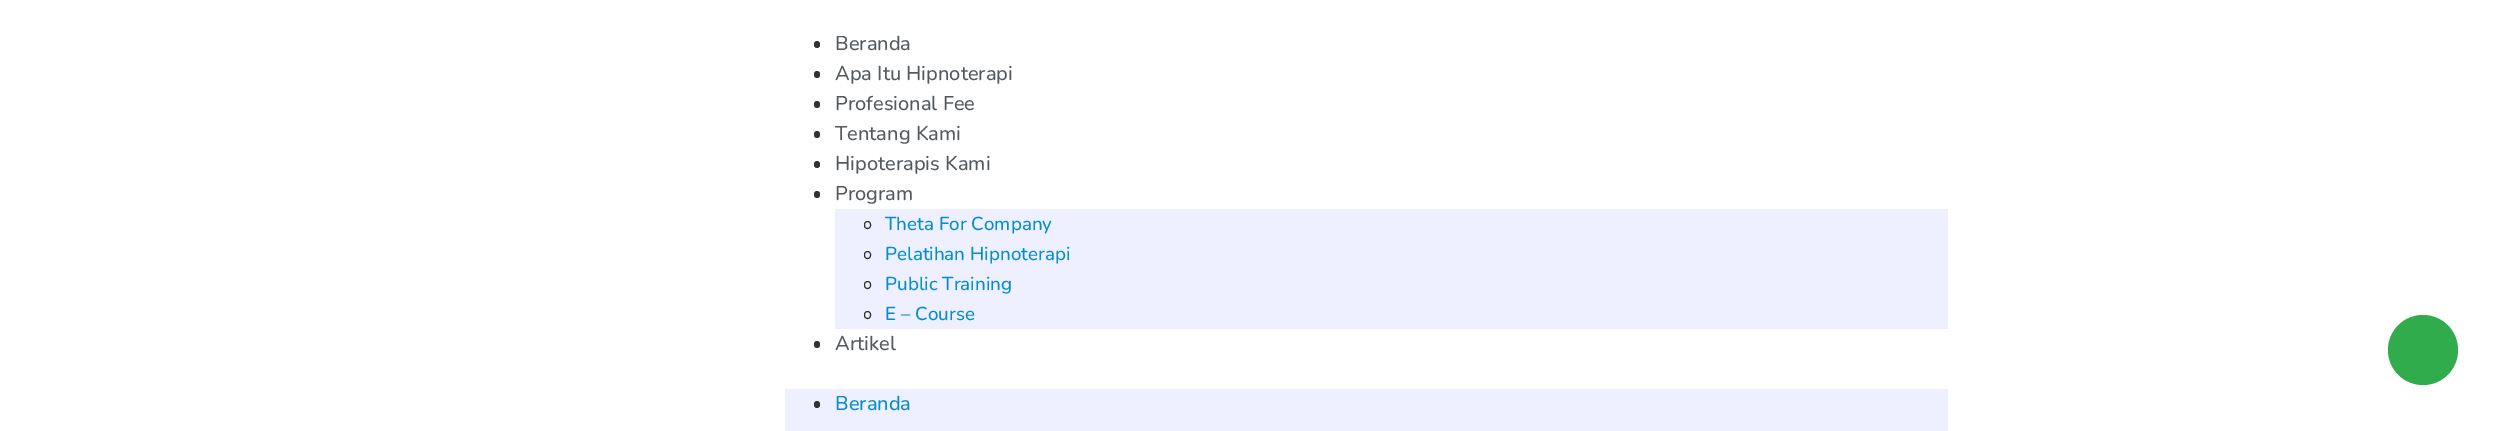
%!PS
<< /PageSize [2494 431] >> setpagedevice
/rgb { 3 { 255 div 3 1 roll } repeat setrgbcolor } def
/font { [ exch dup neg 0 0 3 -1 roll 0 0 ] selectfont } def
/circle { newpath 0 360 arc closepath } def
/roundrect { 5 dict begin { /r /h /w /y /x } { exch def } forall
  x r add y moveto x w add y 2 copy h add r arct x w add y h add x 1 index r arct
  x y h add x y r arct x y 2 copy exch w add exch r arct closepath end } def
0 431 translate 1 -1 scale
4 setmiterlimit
255 255 255 rgb
0 0 2494 431 rectfill
51 51 51 rgb
814 41 6 7 3 roundrect fill
814 71 6 7 3 roundrect fill
814 101 6 7 3 roundrect fill
814 131 6 7 3 roundrect fill
814 161 6 7 3 roundrect fill
814 191 6 7 3 roundrect fill
238 240 255 rgb
835 209 1113 120 rectfill
51 51 51 rgb
864.5 221.5 6 7 3 roundrect stroke
864.5 251.5 6 7 3 roundrect stroke
864.5 281.5 6 7 3 roundrect stroke
864.5 311.5 6 7 3 roundrect stroke
814 341 6 7 3 roundrect fill
238 240 255 rgb
785 389 1163 42 rectfill
51 51 51 rgb
814 401 6 7 3 roundrect fill
49 172 77 rgb
2423 350 35 circle fill
/Nunito-Medium 20 font
84 89 95 rgb
[
  [(Beranda) 835 50]
  [(Apa Itu Hipnoterapi) 835 80]
  [(Profesional Fee) 835 110]
  [(Tentang Kami) 835 140]
  [(Hipoterapis Kami) 835 170]
  [(Program) 835 200]
] { aload pop moveto show } forall
/Nunito-Medium 18.75 font
5 141 207 rgb
[
  [(Theta For Company) 885 230]
  [(Pelatihan Hipnoterapi) 885 260]
  [(Public Training) 885 290]
  [(E – Course) 885 320]
] { aload pop moveto show } forall
/Nunito-Medium 20 font
84 89 95 rgb
835 350 moveto (Artikel) show
5 141 207 rgb
835 410 moveto (Beranda) show
showpage
